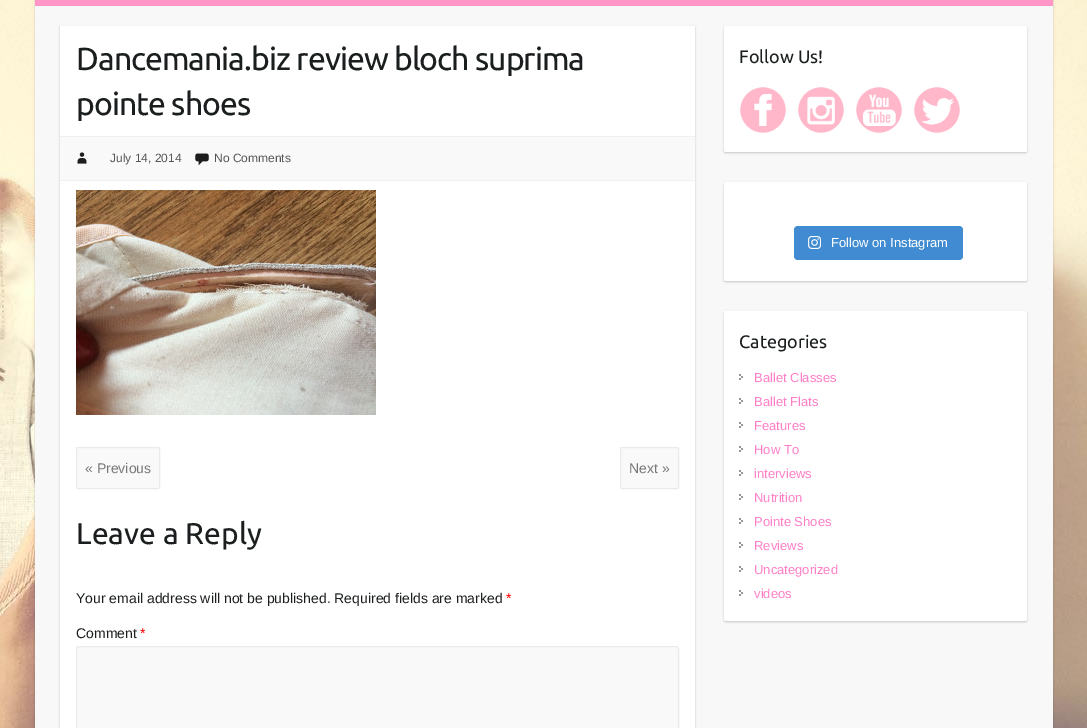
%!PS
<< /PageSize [1087 728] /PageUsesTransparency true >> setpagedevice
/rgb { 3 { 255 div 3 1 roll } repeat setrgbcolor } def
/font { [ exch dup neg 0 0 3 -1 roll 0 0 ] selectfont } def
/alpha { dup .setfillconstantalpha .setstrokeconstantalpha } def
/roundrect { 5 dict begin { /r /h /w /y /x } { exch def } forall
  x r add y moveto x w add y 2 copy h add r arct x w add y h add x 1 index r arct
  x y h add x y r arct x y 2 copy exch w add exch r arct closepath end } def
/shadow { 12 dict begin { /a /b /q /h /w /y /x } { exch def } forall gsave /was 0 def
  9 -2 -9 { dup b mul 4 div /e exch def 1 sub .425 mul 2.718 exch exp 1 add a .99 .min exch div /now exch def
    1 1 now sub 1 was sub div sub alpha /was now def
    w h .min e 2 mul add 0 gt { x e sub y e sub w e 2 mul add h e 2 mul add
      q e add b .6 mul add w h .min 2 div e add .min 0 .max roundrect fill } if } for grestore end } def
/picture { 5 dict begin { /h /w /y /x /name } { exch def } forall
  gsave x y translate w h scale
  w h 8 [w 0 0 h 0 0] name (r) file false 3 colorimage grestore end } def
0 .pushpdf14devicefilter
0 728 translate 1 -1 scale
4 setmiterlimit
255 255 255 rgb
0 0 1087 728 rectfill
(img/1.rgb) 0 0 1087 728 picture
0 0 0 rgb
35 -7 1018 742 4 1 0.2 shadow
248 248 248 rgb
35 6 1018 722 rectfill
255 150 199 rgb
35 0 1018 6 rectfill
0 0 0 rgb
60 27 635 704 0 1 0.2 shadow
[
  [60 26 635 702 255 255 255]
  [60 137 635 43 249 249 249]
  [60 136 635 1 240 240 240]
  [60 180 635 1 240 240 240]
] { aload pop rgb rectfill } forall
(img/2.rgb) 77 152 10 12 picture
(img/3.rgb) 195 153 14 13 picture
(img/4.rgb) 76 190 300 225 picture
249 249 249 rgb
76.5 447.5 83 41 1.5 roundrect gsave fill grestore
234 234 234 rgb
stroke
249 249 249 rgb
620.5 447.5 58 41 1.5 roundrect gsave fill grestore
234 234 234 rgb
stroke
249 249 249 rgb
76.5 646.5 602 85 2.5 roundrect gsave fill grestore
234 234 234 rgb
stroke
0 0 0 rgb
724 27 303 126 2 1 0.2 shadow
255 255 255 rgb
724 26 303 126 2 roundrect fill
(img/5.rgb) 740 87 46 46 picture
(img/6.rgb) 798 87 46 46 picture
(img/7.rgb) 856 87 46 46 picture
(img/8.rgb) 914 87 46 46 picture
0 0 0 rgb
724 183 303 99 2 1 0.2 shadow
255 255 255 rgb
724 182 303 99 2 roundrect fill
64 139 209 rgb
794 226 169 34 4 roundrect fill
(img/9.rgb) 808 236 13 13 picture
0 0 0 rgb
724 312 303 310 2 1 0.2 shadow
255 255 255 rgb
724 311 303 310 2 roundrect fill
(img/10.rgb) 739 374 4 6 picture
(img/10.rgb) 739 398 4 6 picture
(img/10.rgb) 739 422 4 6 picture
(img/10.rgb) 739 446 4 6 picture
(img/10.rgb) 739 470 4 6 picture
(img/10.rgb) 739 494 4 6 picture
(img/10.rgb) 739 518 4 6 picture
(img/10.rgb) 739 542 4 6 picture
(img/10.rgb) 739 566 4 6 picture
(img/10.rgb) 739 590 4 6 picture
/Ubuntu-Regular 32 font
27 30 31 rgb
76 70 moveto -1 0 (Dancemania.biz review bloch suprima) ashow
76 115 moveto -1 0 (pointe shoes) ashow
/LiberationSans-Regular 12 font
85 85 85 rgb
110 162 moveto (July 14, 2014) show
214 162 moveto (No Comments) show
/LiberationSans-Regular 14 font
119 119 119 rgb
85 473 moveto (« Previous) show
629 473 moveto (Next ») show
/Ubuntu-Regular 30 font
27 30 31 rgb
76 544 moveto (Leave a Reply) show
/LiberationSans-Regular 14 font
76 603 moveto (Your email address will not be published. Required fields are marked) show
255 0 0 rgb
506 603 moveto (*) show
27 30 31 rgb
76 638 moveto (Comment) show
255 0 0 rgb
140 638 moveto (*) show
/Ubuntu-Regular 18 font
27 30 31 rgb
739 63 moveto (Follow Us!) show
/LiberationSans-Regular 13 font
255 255 255 rgb
831 247 moveto (Follow on Instagram) show
/Ubuntu-Regular 18 font
27 30 31 rgb
739 348 moveto (Categories) show
/LiberationSans-Regular 13 font
255 127 199 rgb
[
  [(Ballet Classes) 754 382]
  [(Ballet Flats) 754 406]
  [(Features) 754 430]
  [(How To) 754 454]
  [(interviews) 754 478]
  [(Nutrition) 754 502]
  [(Pointe Shoes) 754 526]
  [(Reviews) 754 550]
  [(Uncategorized) 754 574]
  [(videos) 754 598]
] { aload pop moveto show } forall
.poppdf14devicefilter showpage
